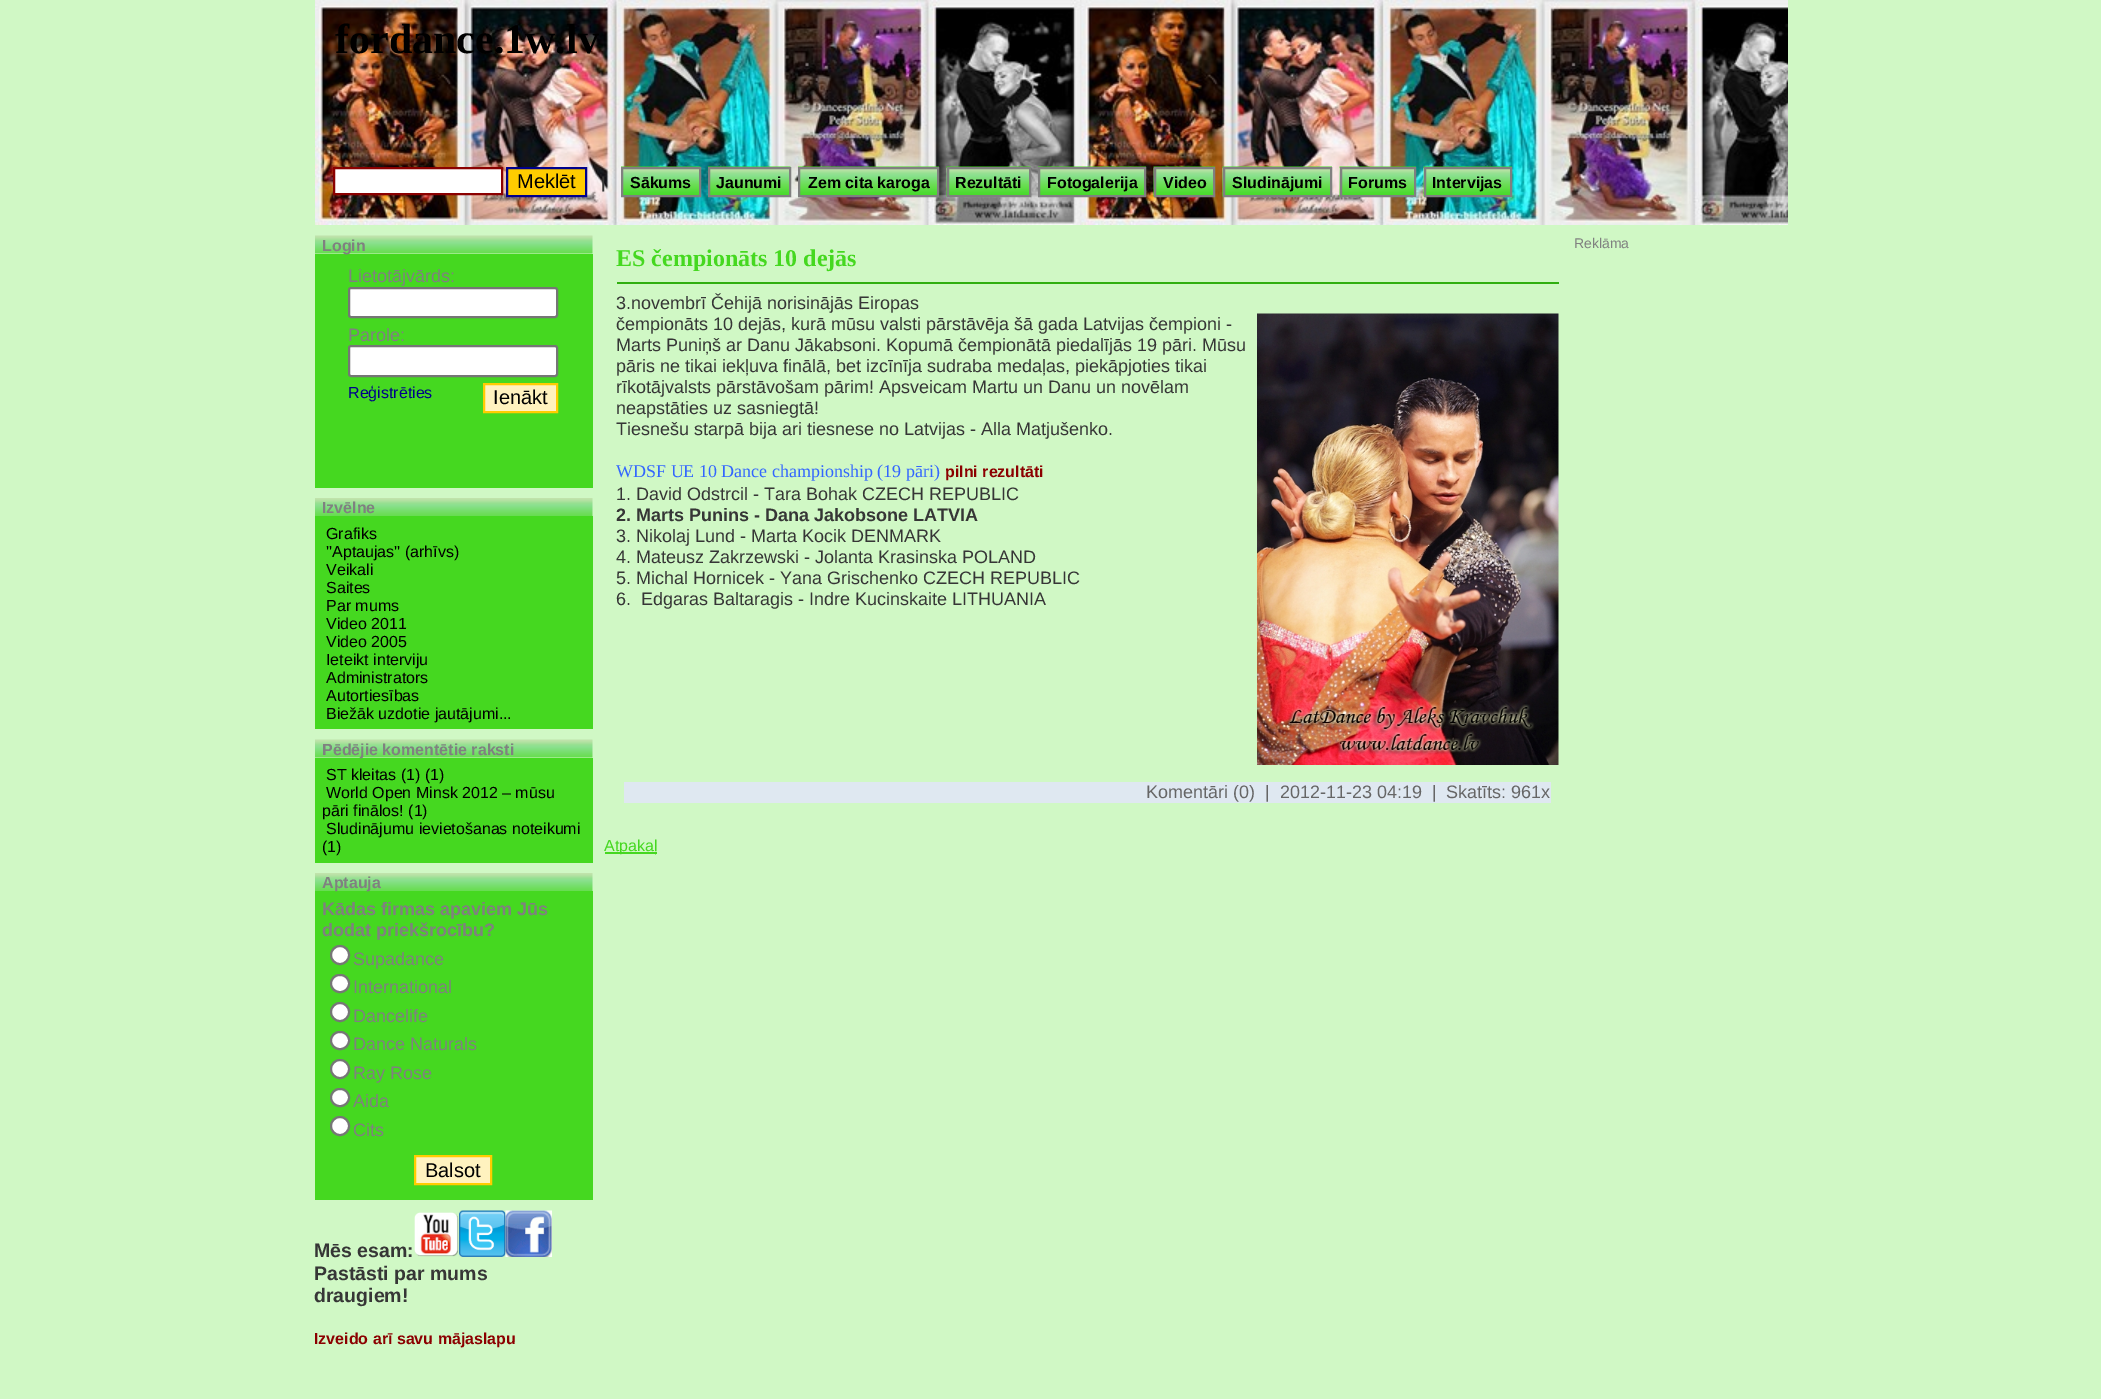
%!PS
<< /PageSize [2101 1399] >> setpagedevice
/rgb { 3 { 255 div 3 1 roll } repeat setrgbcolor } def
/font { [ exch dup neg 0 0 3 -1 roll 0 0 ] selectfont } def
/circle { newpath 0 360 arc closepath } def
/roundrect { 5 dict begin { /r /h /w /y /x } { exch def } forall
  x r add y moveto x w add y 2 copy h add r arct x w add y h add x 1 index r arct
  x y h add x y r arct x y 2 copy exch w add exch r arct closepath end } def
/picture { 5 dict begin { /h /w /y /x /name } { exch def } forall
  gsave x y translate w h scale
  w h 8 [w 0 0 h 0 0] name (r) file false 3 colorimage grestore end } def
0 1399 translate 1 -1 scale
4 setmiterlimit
208 248 197 rgb
0 0 2101 1399 rectfill
(img/1.rgb) 315 0 1473 225 picture
255 255 255 rgb
334 168 moveto 502 168 lineto 502 194 lineto 334 194 lineto closepath gsave fill grestore
139 0 0 rgb
2 setlinewidth
stroke
255 204 0 rgb
507 168 moveto 586 168 lineto 586 196 lineto 507 196 lineto closepath gsave fill grestore
0 0 139 rgb
stroke
(img/2.rgb) 621 166 80 29 picture
(img/3.rgb) 708 166 83 29 picture
(img/4.rgb) 798 166 141 29 picture
(img/5.rgb) 946 166 85 31 picture
(img/6.rgb) 1038 166 108 29 picture
(img/7.rgb) 1153 166 62 31 picture
(img/8.rgb) 1222 166 110 31 picture
(img/9.rgb) 1339 166 77 31 picture
(img/10.rgb) 1423 166 89 31 picture
128 128 128 rgb
622 168 78 28 rectstroke
709 168 81 28 rectstroke
799 168 139 28 rectstroke
948 168 82 28 rectstroke
1039 168 106 28 rectstroke
1155 168 59 28 rectstroke
1224 168 107 28 rectstroke
1341 168 74 28 rectstroke
1425 168 86 28 rectstroke
(img/11.rgb) 315 235 278 19 picture
69 216 32 rgb
315 254 278 234 rectfill
255 255 255 rgb
349 288 208 29 2 roundrect gsave fill grestore
118 118 118 rgb
stroke
255 255 255 rgb
349 346 208 30 2 roundrect gsave fill grestore
118 118 118 rgb
stroke
255 242 191 rgb
484 384 moveto 557 384 lineto 557 412 lineto 484 412 lineto closepath gsave fill grestore
255 204 0 rgb
stroke
(img/12.rgb) 315 498 278 18 picture
69 216 32 rgb
315 516 278 213 rectfill
(img/11.rgb) 315 739 278 19 picture
315 758 278 105 rectfill
(img/12.rgb) 315 873 278 18 picture
315 891 278 309 rectfill
255 255 255 rgb
340 955 9 circle gsave fill grestore
118 118 118 rgb
stroke
255 255 255 rgb
331 975 18 17 8.5 roundrect gsave fill grestore
118 118 118 rgb
stroke
255 255 255 rgb
340 1012 9 circle gsave fill grestore
118 118 118 rgb
stroke
255 255 255 rgb
331 1032 18 17 8.5 roundrect gsave fill grestore
118 118 118 rgb
stroke
255 255 255 rgb
340 1069 9 circle gsave fill grestore
118 118 118 rgb
stroke
255 255 255 rgb
331 1089 18 17 8.5 roundrect gsave fill grestore
118 118 118 rgb
stroke
255 255 255 rgb
340 1126 9 circle gsave fill grestore
118 118 118 rgb
stroke
255 242 191 rgb
415 1156 moveto 491 1156 lineto 491 1184 lineto 415 1184 lineto closepath gsave fill grestore
255 204 0 rgb
stroke
(img/13.rgb) 414 1212 45 45 picture
(img/14.rgb) 459 1210 47 47 picture
(img/15.rgb) 505 1210 47 47 picture
48 175 16 rgb
617 282 942 2 rectfill
(img/16.rgb) 1257 313 302 452 picture
223 232 241 rgb
624 782 927 21 rectfill
69 216 32 rgb
605 852 52 2 rectfill
/LiberationSerif-Bold 42 font
0 0 0 rgb
335 53 moveto (fordance.1w.lv) show
/LiberationSans-Regular 20 font
517 188 moveto (Meklēt) show
/LiberationSans-Bold 16 font
54 54 54 rgb
601 188 moveto (|) show
0 0 0 rgb
[
  [(Sākums) 630 188]
  [(Jaunumi) 716 188]
  [(Zem cita karoga) 808 188]
  [(Rezultāti) 955 188]
  [(Fotogalerija) 1047 188]
  [(Video) 1163 188]
  [(Sludinājumi) 1232 188]
  [(Forums) 1348 188]
  [(Intervijas) 1432 188]
] { aload pop moveto show } forall
128 128 128 rgb
322 251 moveto (Login) show
/LiberationSans-Regular 18 font
348 282 moveto (Lietotājvārds:) show
348 341 moveto (Parole:) show
/LiberationSans-Regular 16 font
0 0 139 rgb
348 398 moveto (Reģistrēties) show
/LiberationSans-Regular 20 font
0 0 0 rgb
493 404 moveto (Ienākt) show
/LiberationSans-Bold 16 font
128 128 128 rgb
322 513 moveto (Izvēlne) show
/LiberationSans-Regular 16 font
0 0 0 rgb
[
  [(Grafiks) 326 539]
  [(''Aptaujas'' \(arhīvs\)) 326 557]
  [(Veikali) 326 575]
  [(Saites) 326 593]
  [(Par mums) 326 611]
  [(Video 2011) 326 629]
  [(Video 2005) 326 647]
  [(Ieteikt interviju) 326 665]
  [(Administrators) 326 683]
  [(Autortiesības) 326 701]
  [(Biežāk uzdotie jautājumi...) 326 719]
] { aload pop moveto show } forall
/LiberationSans-Bold 16 font
128 128 128 rgb
322 755 moveto (Pēdējie komentētie raksti) show
/LiberationSans-Regular 16 font
0 0 0 rgb
[
  [(ST kleitas \(1\) \(1\)) 326 780]
  [(World Open Minsk 2012 – mūsu) 326 798]
  [(pāri finālos! \(1\)) 322 816]
  [(Sludinājumu ievietošanas noteikumi) 326 834]
  [(\(1\)) 322 852]
] { aload pop moveto show } forall
/LiberationSans-Bold 16 font
128 128 128 rgb
322 888 moveto (Aptauja) show
/LiberationSans-Bold 18 font
322 915 moveto (Kādas firmas apaviem Jūs) show
322 936 moveto (dodat priekšrocību?) show
/LiberationSans-Regular 18 font
[
  [(Supadance) 353 965]
  [(International) 353 993]
  [(Dancelife) 353 1022]
  [(Dance Naturals) 353 1050]
  [(Ray Rose) 353 1079]
  [(Aida) 353 1107]
  [(Cits) 353 1136]
] { aload pop moveto show } forall
/LiberationSans-Regular 20 font
0 0 0 rgb
425 1177 moveto (Balsot) show
/LiberationSans-Bold 19.5 font
54 54 54 rgb
[
  [(Mēs esam:) 314 1257]
  [(Pastāsti par mums) 314 1280]
  [(draugiem!) 314 1302]
] { aload pop moveto show } forall
/LiberationSans-Bold 16 font
139 0 0 rgb
314 1344 moveto (Izveido arī savu mājaslapu) show
/LiberationSerif-Bold 24 font
69 216 32 rgb
616 266 moveto (ES čempionāts 10 dejās) show
/LiberationSans-Regular 18 font
54 54 54 rgb
[
  [(3.novembrī Čehijā norisinājās Eiropas) 616 309]
  [(čempionāts 10 dejās, kurā mūsu valsti pārstāvēja šā gada Latvijas čempioni -) 616 330]
  [(Marts Puniņš ar Danu Jākabsoni. Kopumā čempionātā piedalījās 19 pāri. Mūsu) 616 351]
  [(pāris ne tikai iekļuva finālā, bet izcīnīja sudraba medaļas, piekāpjoties tikai) 616 372]
  [(rīkotājvalsts pārstāvošam pārim! Apsveicam Martu un Danu un novēlam) 616 393]
  [(neapstāties uz sasniegtā!) 616 414]
  [(Tiesnešu starpā bija ari tiesnese no Latvijas - Alla Matjušenko.) 616 435]
] { aload pop moveto show } forall
/LiberationSerif-Regular 18 font
51 102 255 rgb
616 477 moveto (WDSF UE 10 Dance championship \(19 pāri\)) show
/LiberationSans-Bold 16 font
139 0 0 rgb
945 477 moveto (pilni rezultāti) show
/LiberationSans-Regular 18 font
54 54 54 rgb
616 500 moveto (1. David Odstrcil - Tara Bohak CZECH REPUBLIC) show
/LiberationSans-Bold 18 font
616 521 moveto (2. Marts Punins - Dana Jakobsone LATVIA) show
/LiberationSans-Regular 18 font
[
  [(3. Nikolaj Lund - Marta Kocik DENMARK) 616 542]
  [(4. Mateusz Zakrzewski - Jolanta Krasinska POLAND) 616 563]
  [(5. Michal Hornicek - Yana Grischenko CZECH REPUBLIC) 616 584]
  [(6.  Edgaras Baltaragis - Indre Kucinskaite LITHUANIA) 616 605]
] { aload pop moveto show } forall
102 102 102 rgb
1146 798 moveto (Komentāri \(0\)  |  2012-11-23 04:19  |  Skatīts: 961x) show
/LiberationSans-Regular 16 font
69 216 32 rgb
604 851 moveto (Atpakaļ) show
/LiberationSans-Regular 14 font
128 128 128 rgb
1574 248 moveto (Reklāma) show
showpage
